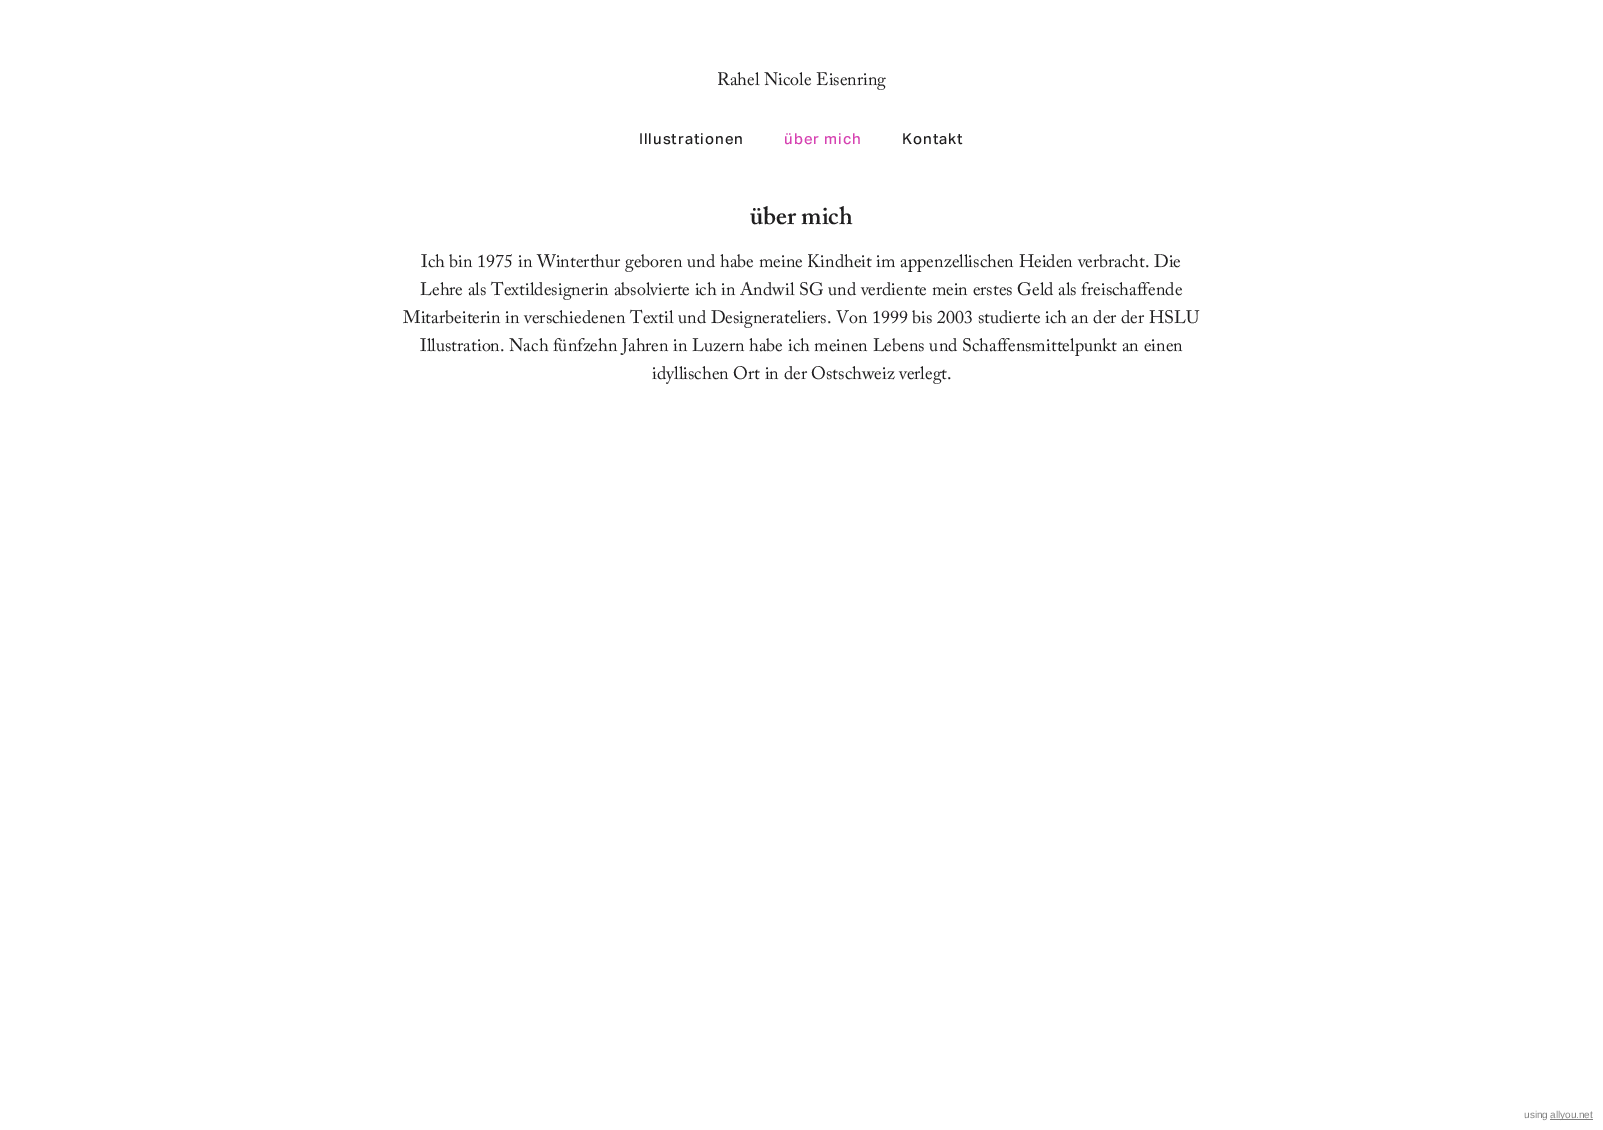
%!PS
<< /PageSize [1603 1130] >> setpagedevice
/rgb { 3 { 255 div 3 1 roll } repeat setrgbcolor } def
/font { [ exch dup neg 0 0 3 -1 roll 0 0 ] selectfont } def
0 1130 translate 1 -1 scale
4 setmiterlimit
255 255 255 rgb
0 0 1603 1130 rectfill
128 128 128 rgb
1550 1119 43 1 rectfill
/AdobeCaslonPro-Regular 18 font
31 30 31 rgb
717 85 moveto (Rahel Nicole Eisenring) show
/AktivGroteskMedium-Medium 15 font
639 144 moveto 1 0 (Illustrationen) ashow
214 66 177 rgb
784 144 moveto 1 0 (über mich) ashow
31 30 31 rgb
902 144 moveto 1 0 (Kontakt) ashow
/AdobeCaslonPro-SemiBold 25 font
750 224 moveto (über mich) show
/AdobeCaslonPro-Regular 18 font
[
  [(Ich bin 1975 in Winterthur geboren und habe meine Kindheit im appenzellischen Heiden verbracht. Die) 421 267]
  [(Lehre als Textildesignerin absolvierte ich in Andwil SG und verdiente mein erstes Geld als freischaffende) 420 295]
  [(Mitarbeiterin in verschiedenen Textil und Designerateliers. Von 1999 bis 2003 studierte ich an der der HSLU) 403 323]
  [(Illustration. Nach fünfzehn Jahren in Luzern habe ich meinen Lebens und Schaffensmittelpunkt an einen) 420 351]
  [(idyllischen Ort in der Ostschweiz verlegt.) 652 379]
] { aload pop moveto show } forall
/LiberationSans-Regular 10 font
128 128 128 rgb
1524 1118 moveto (using) show
1550 1118 moveto (allyou.net) show
showpage
